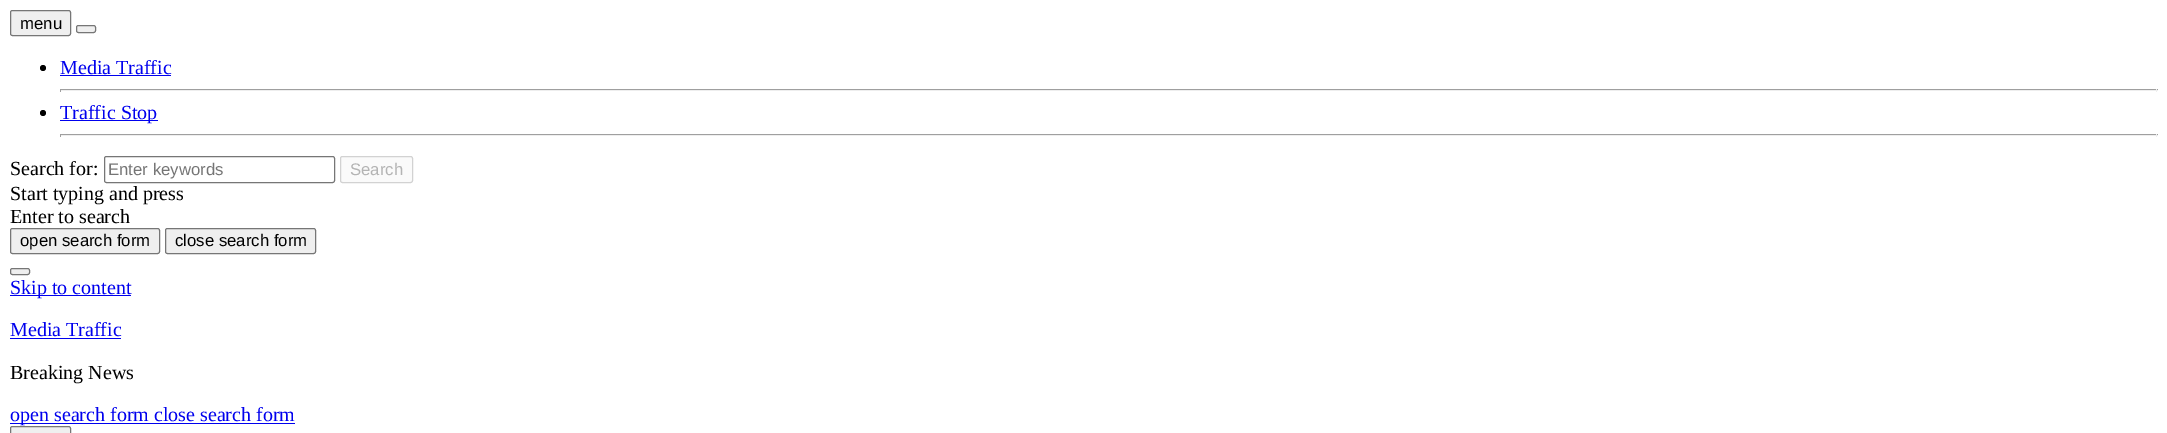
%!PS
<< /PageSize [2167 433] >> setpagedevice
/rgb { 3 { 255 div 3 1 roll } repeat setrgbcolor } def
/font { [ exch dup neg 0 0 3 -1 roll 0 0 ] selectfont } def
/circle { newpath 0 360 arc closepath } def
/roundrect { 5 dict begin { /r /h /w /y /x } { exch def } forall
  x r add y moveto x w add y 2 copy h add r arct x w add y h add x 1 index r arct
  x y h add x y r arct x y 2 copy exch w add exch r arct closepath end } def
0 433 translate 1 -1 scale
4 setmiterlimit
255 255 255 rgb
0 0 2167 433 rectfill
239 239 239 rgb
10.5 10.5 60 25 2 roundrect gsave fill grestore
118 118 118 rgb
stroke
239 239 239 rgb
76.5 25.5 19 7 2 roundrect gsave fill grestore
118 118 118 rgb
stroke
0 0 0 rgb
43 68 3 circle fill
[
  [60 75 111 1 0 0 238]
  [60 89 2098 1 159 159 159]
  [2156 89 1 3 238 238 238]
  [60 90 2098 1 238 238 238]
  [60 89 1 3 159 159 159]
] { aload pop rgb rectfill } forall
0 0 0 rgb
43 113 3 circle fill
[
  [60 120 98 1 0 0 238]
  [60 134 2098 1 159 159 159]
  [2156 134 1 3 238 238 238]
  [60 135 2098 1 238 238 238]
  [60 134 1 3 159 159 159]
] { aload pop rgb rectfill } forall
118 118 118 rgb
104.5 156.5 230 26 2 roundrect stroke
250 250 250 rgb
340.5 156.5 72 26 2 roundrect gsave fill grestore
210 210 210 rgb
stroke
239 239 239 rgb
10.5 228.5 149 25 2 roundrect gsave fill grestore
118 118 118 rgb
stroke
239 239 239 rgb
165.5 228.5 150 25 2 roundrect gsave fill grestore
118 118 118 rgb
stroke
239 239 239 rgb
10.5 268.5 19 6 2 roundrect gsave fill grestore
118 118 118 rgb
stroke
[
  [10 295 121 1 0 0 238]
  [10 338 111 1 0 0 238]
  [10 423 285 1 0 0 238]
] { aload pop rgb rectfill } forall
239 239 239 rgb
10.5 426.5 60 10 2 roundrect gsave fill grestore
118 118 118 rgb
stroke
/LiberationSans-Regular 16.75 font
0 0 0 rgb
20 29 moveto (menu) show
/LiberationSerif-Regular 20 font
0 0 238 rgb
60 74 moveto (Media Traffic) show
60 119 moveto (Traffic Stop) show
0 0 0 rgb
10 175 moveto (Search for:) show
/LiberationSans-Regular 16.75 font
117 117 117 rgb
108 175 moveto (Enter keywords) show
180 180 180 rgb
350 175 moveto (Search) show
/LiberationSerif-Regular 20 font
0 0 0 rgb
10 200 moveto (Start typing and press) show
10 223 moveto (Enter to search) show
/LiberationSans-Regular 16.75 font
20 246 moveto (open search form) show
175 246 moveto (close search form) show
/LiberationSerif-Regular 20 font
0 0 238 rgb
10 294 moveto (Skip to content) show
10 336 moveto (Media Traffic) show
0 0 0 rgb
10 379 moveto (Breaking News) show
0 0 238 rgb
10 421 moveto (open search form close search form) show
showpage
